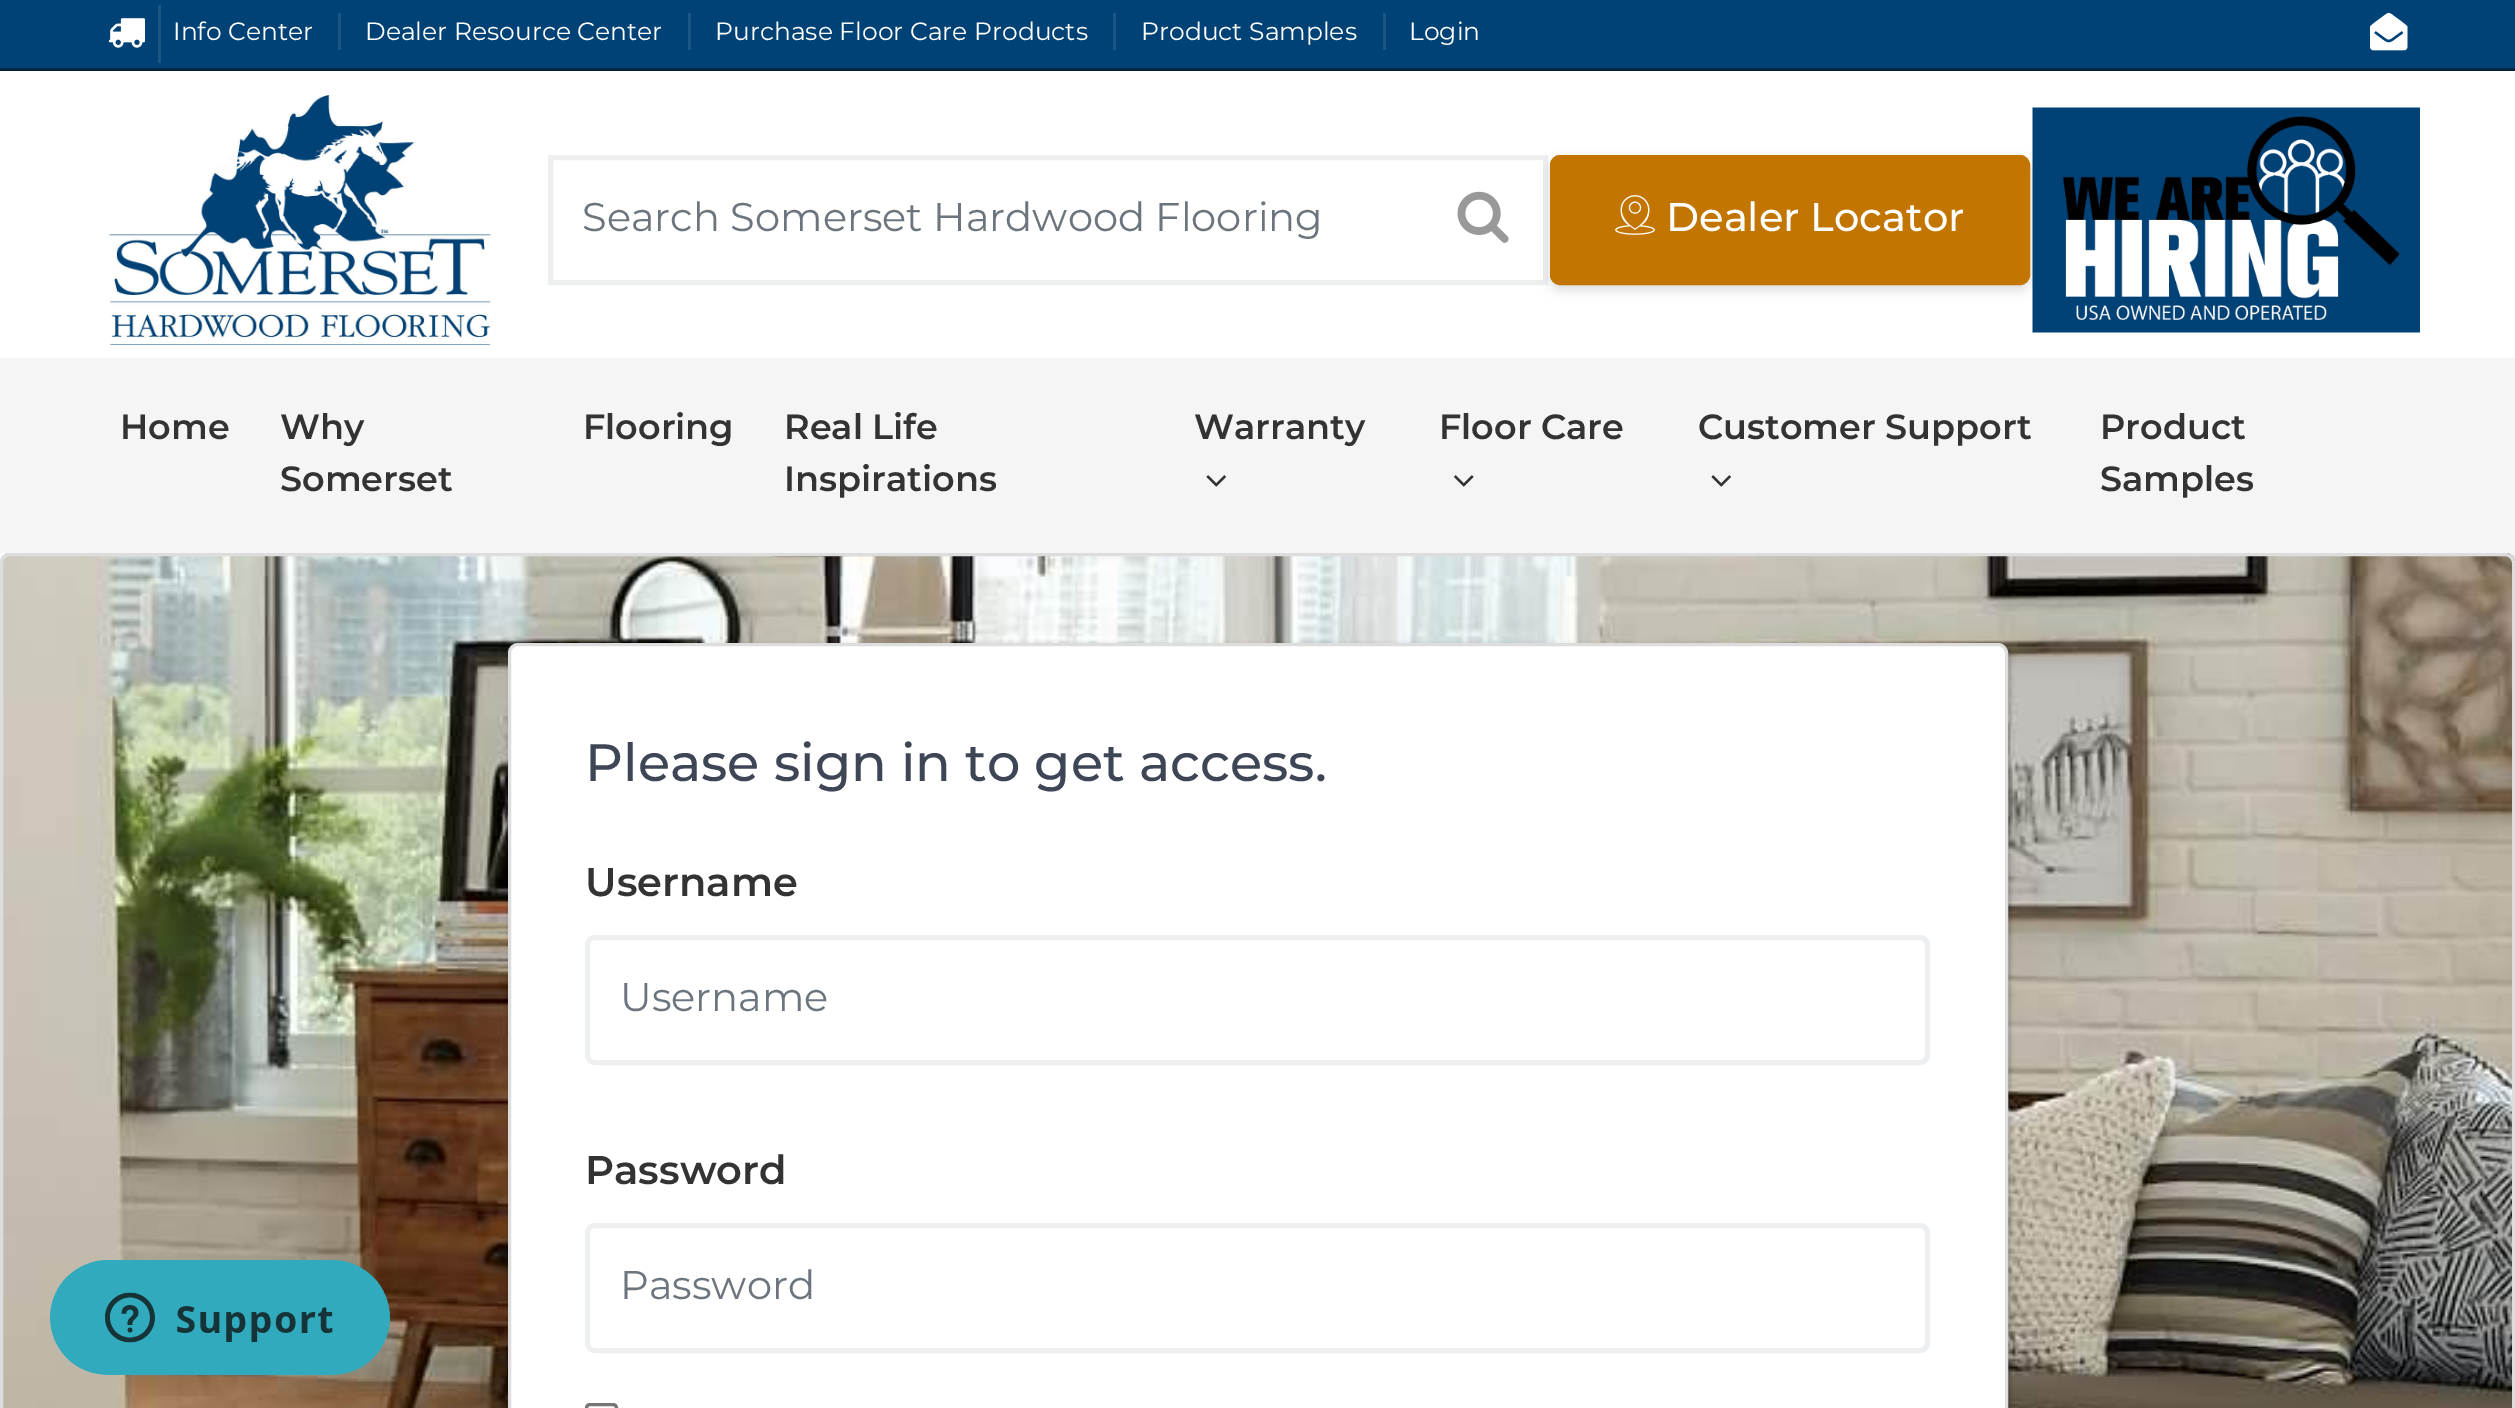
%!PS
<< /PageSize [2515 1408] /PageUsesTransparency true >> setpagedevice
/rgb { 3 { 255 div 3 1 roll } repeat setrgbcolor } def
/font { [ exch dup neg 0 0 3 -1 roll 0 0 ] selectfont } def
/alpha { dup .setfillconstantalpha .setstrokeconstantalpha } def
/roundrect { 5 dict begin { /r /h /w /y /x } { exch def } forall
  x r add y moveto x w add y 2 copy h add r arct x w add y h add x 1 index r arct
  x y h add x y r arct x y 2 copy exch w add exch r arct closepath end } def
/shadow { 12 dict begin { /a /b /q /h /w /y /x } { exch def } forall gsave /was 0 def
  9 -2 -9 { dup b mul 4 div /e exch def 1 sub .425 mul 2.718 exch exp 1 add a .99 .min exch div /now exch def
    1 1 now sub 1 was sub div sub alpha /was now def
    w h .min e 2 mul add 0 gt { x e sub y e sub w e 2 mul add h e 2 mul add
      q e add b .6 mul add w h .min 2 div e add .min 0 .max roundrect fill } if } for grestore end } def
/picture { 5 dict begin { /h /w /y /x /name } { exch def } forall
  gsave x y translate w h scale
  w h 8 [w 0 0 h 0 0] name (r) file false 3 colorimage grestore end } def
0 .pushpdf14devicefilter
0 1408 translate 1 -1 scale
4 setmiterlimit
255 255 255 rgb
0 0 2515 1408 rectfill
[
  [0 0 2515 68 0 66 118]
  [0 68 2515 3 0 36 65]
  [158 5 3 58 26 85 132]
] { aload pop rgb rectfill } forall
(img/1.rgb) 108 18 37 30 picture
[
  [338 13 3 37 26 85 132]
  [688 13 3 37 26 85 132]
  [1113 13 3 37 26 85 132]
  [1383 13 3 37 26 85 132]
] { aload pop rgb rectfill } forall
(img/2.rgb) 2370 12 38 39 picture
(img/3.rgb) 109 95 383 250 picture
0 0 0 rgb
1550 160 480 130 10 6 0.14 shadow
255 255 255 rgb
1541 167 2 113 rectfill
0.13 alpha
120 130 140 rgb
5 setlinewidth
550.5 157.5 995 125 rectstroke
1 alpha
(img/4.rgb) 1457 191 52 52 picture
194 117 0 rgb
1551.5 156.5 477 127 8.5 roundrect gsave fill grestore
3 setlinewidth
stroke
(img/5.rgb) 1615 195 40 40 picture
(img/6.rgb) 2032 107 388 226 picture
0 0 0 rgb
3 555 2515 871 10 2.5 0.25 shadow
245 245 245 rgb
0 358 2515 195 rectfill
(img/7.rgb) 1206 475 20 12 picture
(img/8.rgb) 1454 475 20 12 picture
(img/7.rgb) 1711 475 20 12 picture
(img/9.rgb) 0 553 2515 855 picture
221 221 221 rgb
1.5 554.5 2512 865 8.5 roundrect stroke
0 0 0 rgb
510 645 1500 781 10 2.5 0.25 shadow
255 255 255 rgb
509.5 644.5 1497 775 8.5 roundrect gsave fill grestore
221 221 221 rgb
stroke
237 239 240 rgb
5 setlinewidth
587.5 937.5 1340 125 7.5 roundrect stroke
587.5 1225.5 1340 125 7.5 roundrect stroke
118 118 118 rgb
3 setlinewidth
586.5 1404.5 30 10 3.5 roundrect stroke
(img/10.rgb) 50 1260 340 115 picture
/Montserrat-Regular 25 font
255 255 255 rgb
[
  [(Info Center) 173 40]
  [(Dealer Resource Center) 365 40]
  [(Purchase Floor Care Products) 715 40]
  [(Product Samples) 1141 40]
  [(Login) 1409 40]
] { aload pop moveto show } forall
/Montserrat-Regular 40 font
108 117 125 rgb
582 231 moveto (Search Somerset Hardwood Flooring) show
/Montserrat-Medium 40 font
255 255 255 rgb
1666 231 moveto (Dealer Locator) show
/Montserrat-SemiBold 35 font
51 51 51 rgb
[
  [(Home) 120 439]
  [(Why) 280 439]
  [(Somerset) 280 491]
  [(Flooring) 583 439]
  [(Real Life) 784 439]
  [(Inspirations) 784 491]
  [(Warranty) 1194 439]
  [(Floor Care) 1439 439]
  [(Customer Support) 1698 439]
  [(Product) 2100 439]
  [(Samples) 2100 491]
] { aload pop moveto show } forall
/Montserrat-Medium 52.5 font
62 69 85 rgb
585 781 moveto (Please sign in to get access.) show
/Montserrat-SemiBold 40 font
51 51 51 rgb
585 896 moveto (Username) show
/Montserrat-Regular 40 font
108 117 125 rgb
620 1011 moveto (Username) show
/Montserrat-SemiBold 40 font
51 51 51 rgb
585 1184 moveto (Password) show
/Montserrat-Regular 40 font
108 117 125 rgb
620 1299 moveto (Password) show
.poppdf14devicefilter showpage
